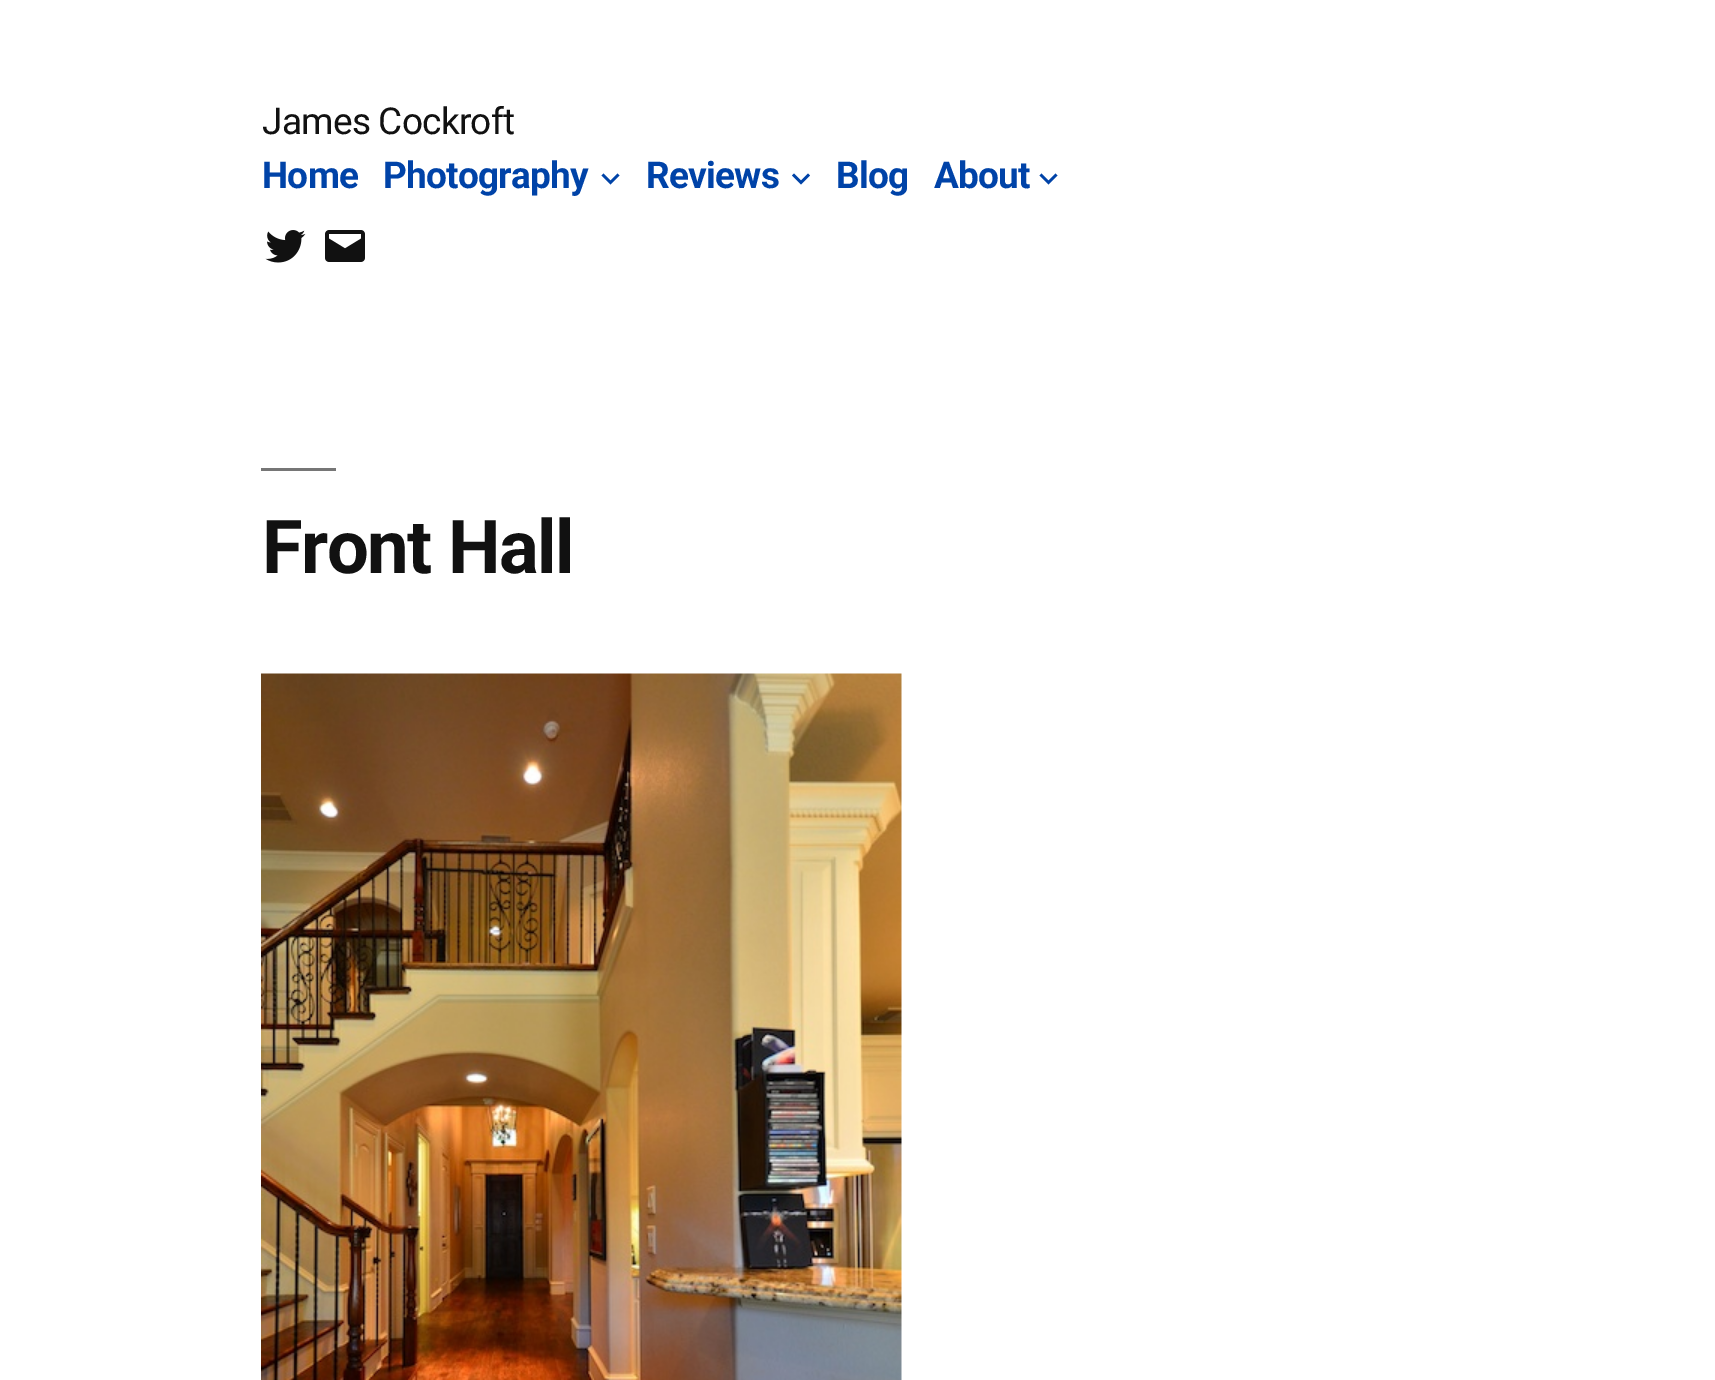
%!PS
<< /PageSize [1715 1380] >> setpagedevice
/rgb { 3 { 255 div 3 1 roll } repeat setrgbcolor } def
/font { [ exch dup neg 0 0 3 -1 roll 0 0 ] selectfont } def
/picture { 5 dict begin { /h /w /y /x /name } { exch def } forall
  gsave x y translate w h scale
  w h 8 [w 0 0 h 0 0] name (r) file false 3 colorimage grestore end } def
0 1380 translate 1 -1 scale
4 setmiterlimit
255 255 255 rgb
0 0 1715 1380 rectfill
0 67 168 rgb
603.5 173.5 moveto 610.5 180.5 lineto 617.5 173.5 lineto 619.5 175.5 lineto 610.5 184.5 lineto 601.5 175.5 lineto closepath fill
794 173.5 moveto 801 180.5 lineto 808 173.5 lineto 810 175.5 lineto 801 184.5 lineto 792 175.5 lineto closepath fill
1041.5 173.5 moveto 1048.5 180.5 lineto 1055.5 173.5 lineto 1057.5 175.5 lineto 1048.5 184.5 lineto 1039.5 175.5 lineto closepath fill
(img/1.rgb) 265 230 41 33 picture
(img/2.rgb) 325 230 40 32 picture
118 118 118 rgb
261 468 75 3 rectfill
(img/3.rgb) 261 673 641 707 picture
/Roboto-Regular 37 font
17 17 17 rgb
262 134 moveto -0.75 0 (James Cockroft) ashow
/Roboto-Bold 37 font
0 67 168 rgb
262 188 moveto -0.75 0 (Home) ashow
383 188 moveto -0.75 0 (Photography) ashow
646 188 moveto -0.75 0 (Reviews) ashow
836 188 moveto -0.75 0 (Blog) ashow
934 188 moveto -0.75 0 (About) ashow
/Roboto-Bold 74.25 font
17 17 17 rgb
262 573 moveto -1.5 0 (Front Hall) ashow
showpage
